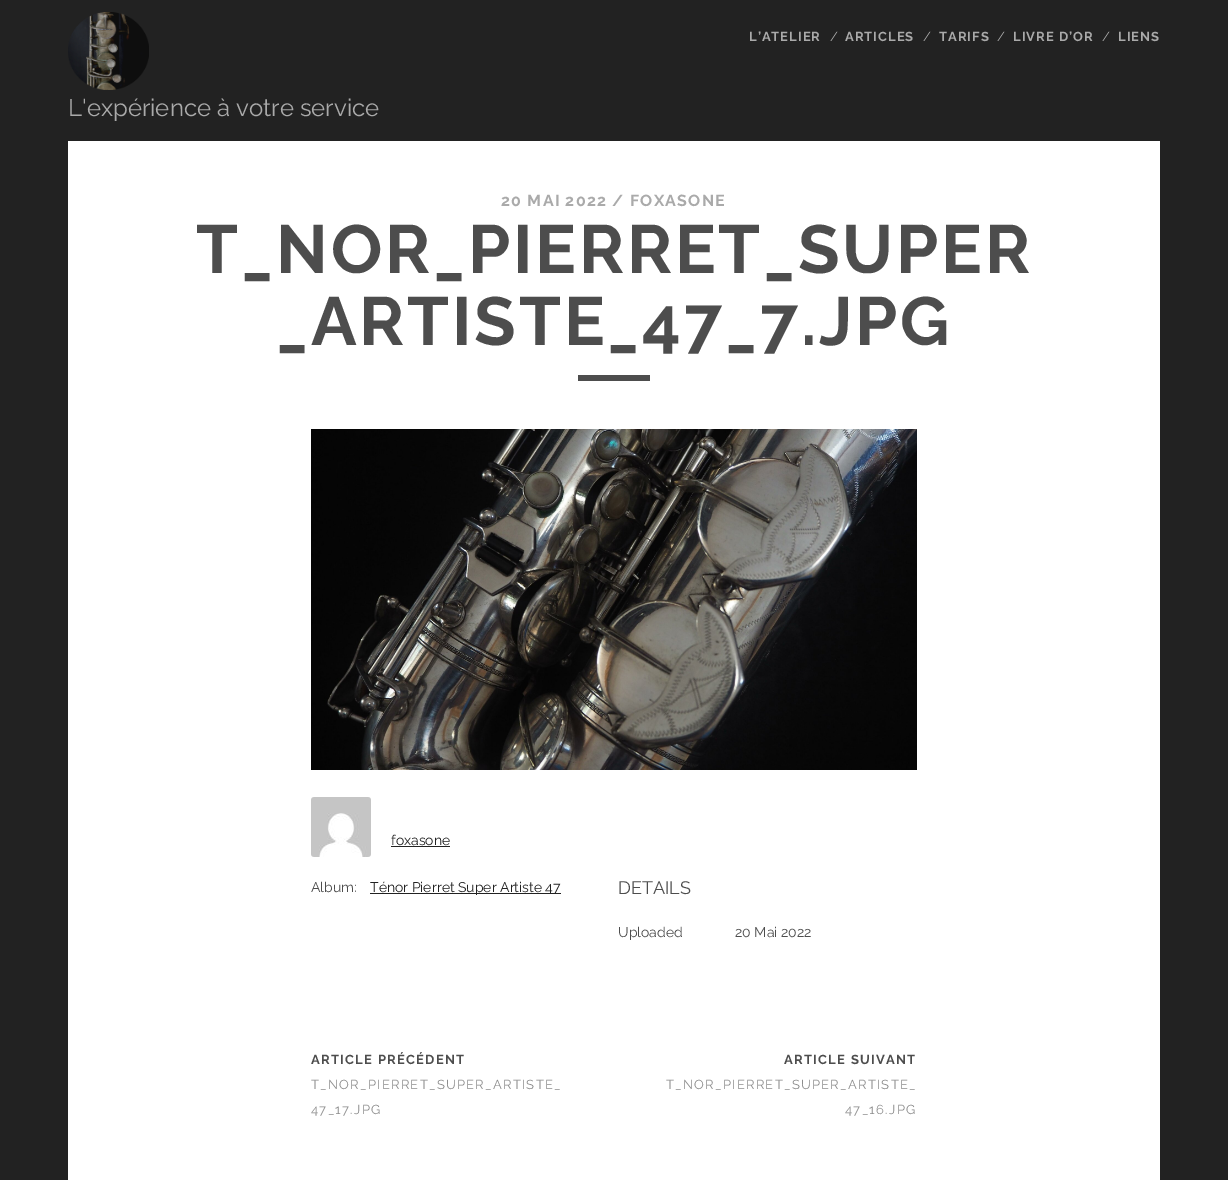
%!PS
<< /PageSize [1228 1180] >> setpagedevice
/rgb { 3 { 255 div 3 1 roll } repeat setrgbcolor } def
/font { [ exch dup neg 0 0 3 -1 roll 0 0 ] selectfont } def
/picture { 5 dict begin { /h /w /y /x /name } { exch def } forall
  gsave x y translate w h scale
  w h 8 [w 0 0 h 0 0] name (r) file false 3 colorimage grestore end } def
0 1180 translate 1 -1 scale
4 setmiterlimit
34 34 34 rgb
0 0 1228 1180 rectfill
(img/1.rgb) 68 12 81 78 picture
255 255 255 rgb
68 141 1092 1039 rectfill
77 77 77 rgb
578 375 72 6 rectfill
(img/2.rgb) 311 429 606 341 picture
(img/3.rgb) 311 797 60 60 picture
34 34 34 rgb
391 846 59 1 rectfill
370 893 191 1 rectfill
/Raleway-Bold 13 font
170 170 170 rgb
749 41 moveto 1 0 (L’ATELIER) ashow
/Raleway-Regular 13 font
830 41 moveto (/) show
/Raleway-Bold 13 font
845 41 moveto 1 0 (ARTICLES) ashow
/Raleway-Regular 13 font
923 41 moveto (/) show
/Raleway-Bold 13 font
939 41 moveto 1 0 (TARIFS) ashow
/Raleway-Regular 13 font
997 41 moveto (/) show
/Raleway-Bold 13 font
1013 41 moveto 1 0 (LIVRE D’OR) ashow
/Raleway-Regular 13 font
1102 41 moveto (/) show
/Raleway-Bold 13 font
1118 41 moveto 1 0 (LIENS) ashow
/Raleway-Regular 24 font
68 116 moveto (L'expérience à votre service) show
/Raleway-Bold 16 font
501 206 moveto 1.25 0 (20 MAI 2022 / FOXASONE) ashow
/Raleway-Bold 68 font
77 77 77 rgb
196 273 moveto 2.75 0 (T_NOR_PIERRET_SUPER) ashow
276 345 moveto 2.75 0 (_ARTISTE_47_7.JPG) ashow
/Raleway-Regular 14 font
34 34 34 rgb
391 845 moveto (foxasone) show
77 77 77 rgb
311 892 moveto (Album:) show
34 34 34 rgb
370 892 moveto (Ténor Pierret Super Artiste 47) show
/Raleway-Regular 18 font
77 77 77 rgb
618 894 moveto (DETAILS) show
/Raleway-Regular 14 font
618 937 moveto (Uploaded) show
735 937 moveto (20 Mai 2022) show
/Raleway-Bold 13 font
311 1064 moveto 1.25 0 (ARTICLE PRÉCÉDENT) ashow
/Raleway-Regular 13 font
140 140 140 rgb
311 1089 moveto 1.25 0 (T_NOR_PIERRET_SUPER_ARTISTE_) ashow
311 1114 moveto 1.25 0 (47_17.JPG) ashow
/Raleway-Bold 13 font
77 77 77 rgb
784 1064 moveto 1.25 0 (ARTICLE SUIVANT) ashow
/Raleway-Regular 13 font
140 140 140 rgb
666 1089 moveto 1.25 0 (T_NOR_PIERRET_SUPER_ARTISTE_) ashow
845 1114 moveto 1.25 0 (47_16.JPG) ashow
showpage
